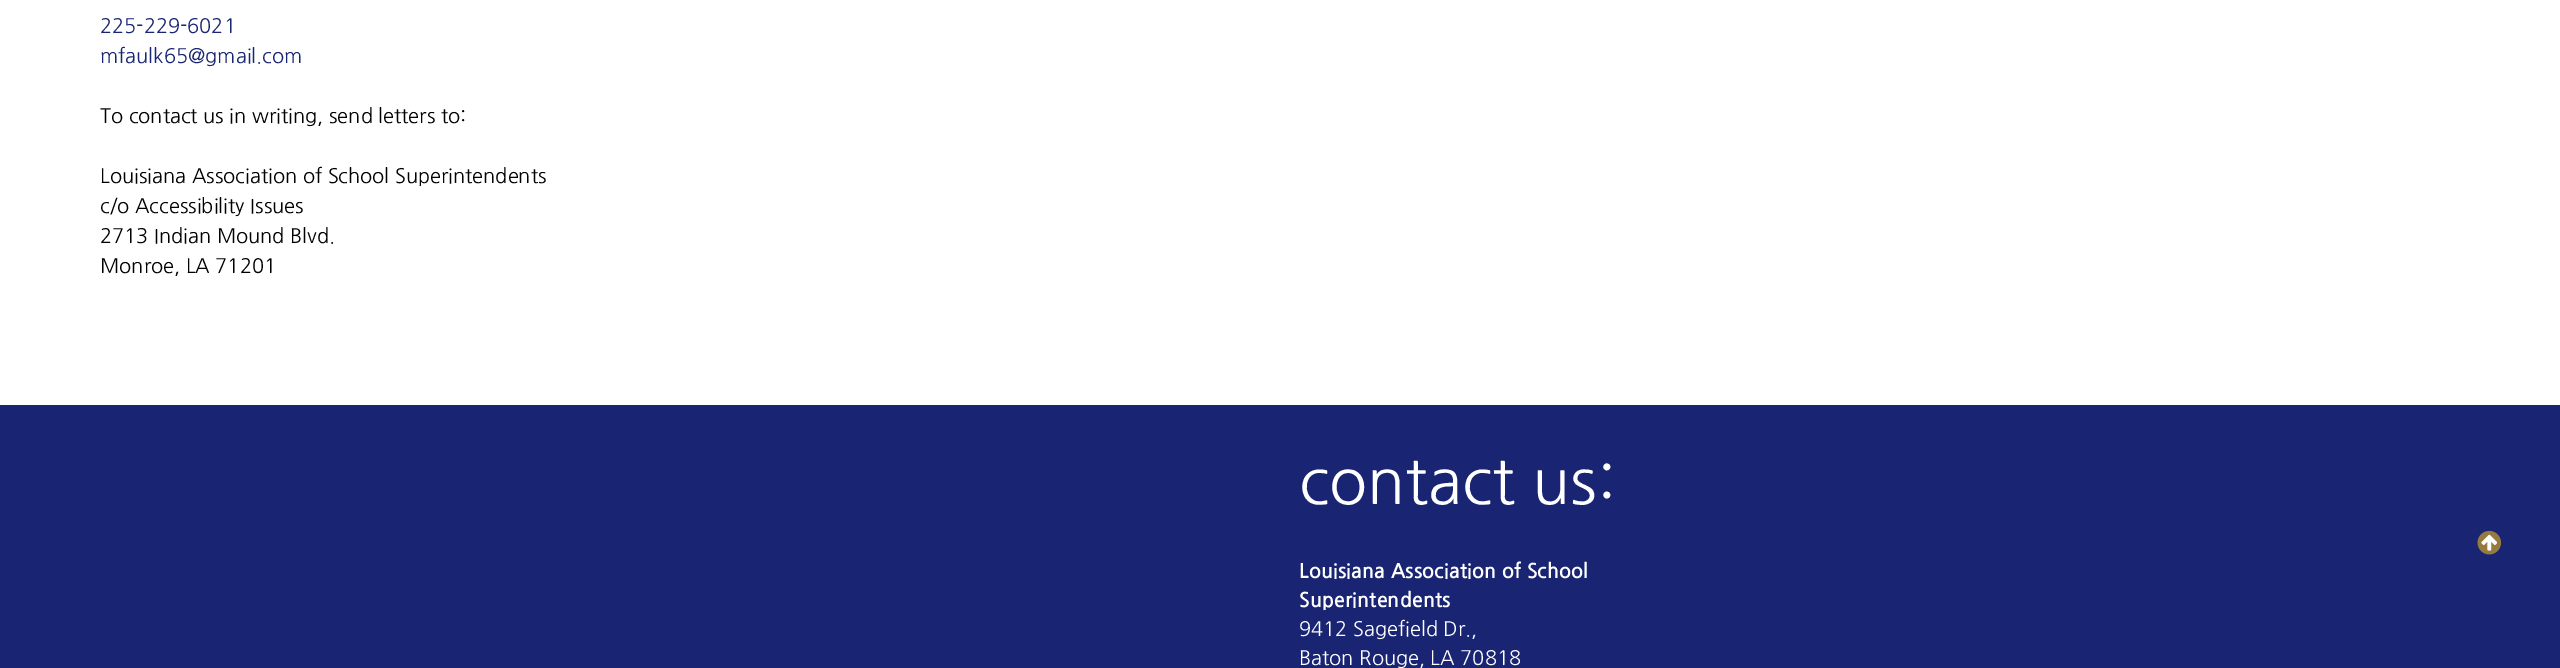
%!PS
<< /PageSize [2560 668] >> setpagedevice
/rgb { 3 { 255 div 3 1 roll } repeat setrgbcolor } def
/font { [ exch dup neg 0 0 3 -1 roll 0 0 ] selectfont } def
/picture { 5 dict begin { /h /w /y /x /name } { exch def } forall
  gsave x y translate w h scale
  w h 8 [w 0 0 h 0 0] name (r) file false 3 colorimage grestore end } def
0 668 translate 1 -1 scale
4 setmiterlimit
255 255 255 rgb
0 0 2560 668 rectfill
25 37 115 rgb
0 405 2560 263 rectfill
gsave 2481 534 moveto 2497 534 lineto 2497 552 lineto 2481 552 lineto closepath clip newpath 2489 543 translate 17 19 scale
<< /ShadingType 3 /ColorSpace /DeviceRGB /Coords [0 0 0 0 0 1] /Extend [true true] /Function << /FunctionType 3 /Domain [0 1] /Functions [<< /FunctionType 2 /Domain [0 1] /C0 [1 1 1] /C1 [1 1 1] /N 1 >> << /FunctionType 2 /Domain [0 1] /C0 [0.098 0.145 0.451] /C1 [0.098 0.145 0.451] /N 1 >>] /Bounds [0.5] /Encode [0 1 0 1] >> >> shfill grestore
(img/1.rgb) 2477 530 25 25 picture
/NanumGothic-Regular 20 font
100 33 moveto (225-229-6021) show
100 63 moveto (mfaulk65@gmail.com) show
0 0 0 rgb
[
  [(To contact us in writing, send letters to:) 100 123]
  [(Louisiana Association of School Superintendents) 100 183]
  [(c/o Accessibility Issues) 100 213]
  [(2713 Indian Mound Blvd.) 100 243]
  [(Monroe, LA 71201) 100 273]
] { aload pop moveto show } forall
/NanumGothic-Regular 62.5 font
255 255 255 rgb
1299 504 moveto (contact us:) show
/NanumGothic-Bold 20 font
1299 578 moveto (Louisiana Association of School) show
1299 607 moveto (Superintendents) show
/NanumGothic-Regular 20 font
1299 636 moveto (9412 Sagefield Dr.,) show
1299 665 moveto (Baton Rouge, LA 70818) show
showpage
